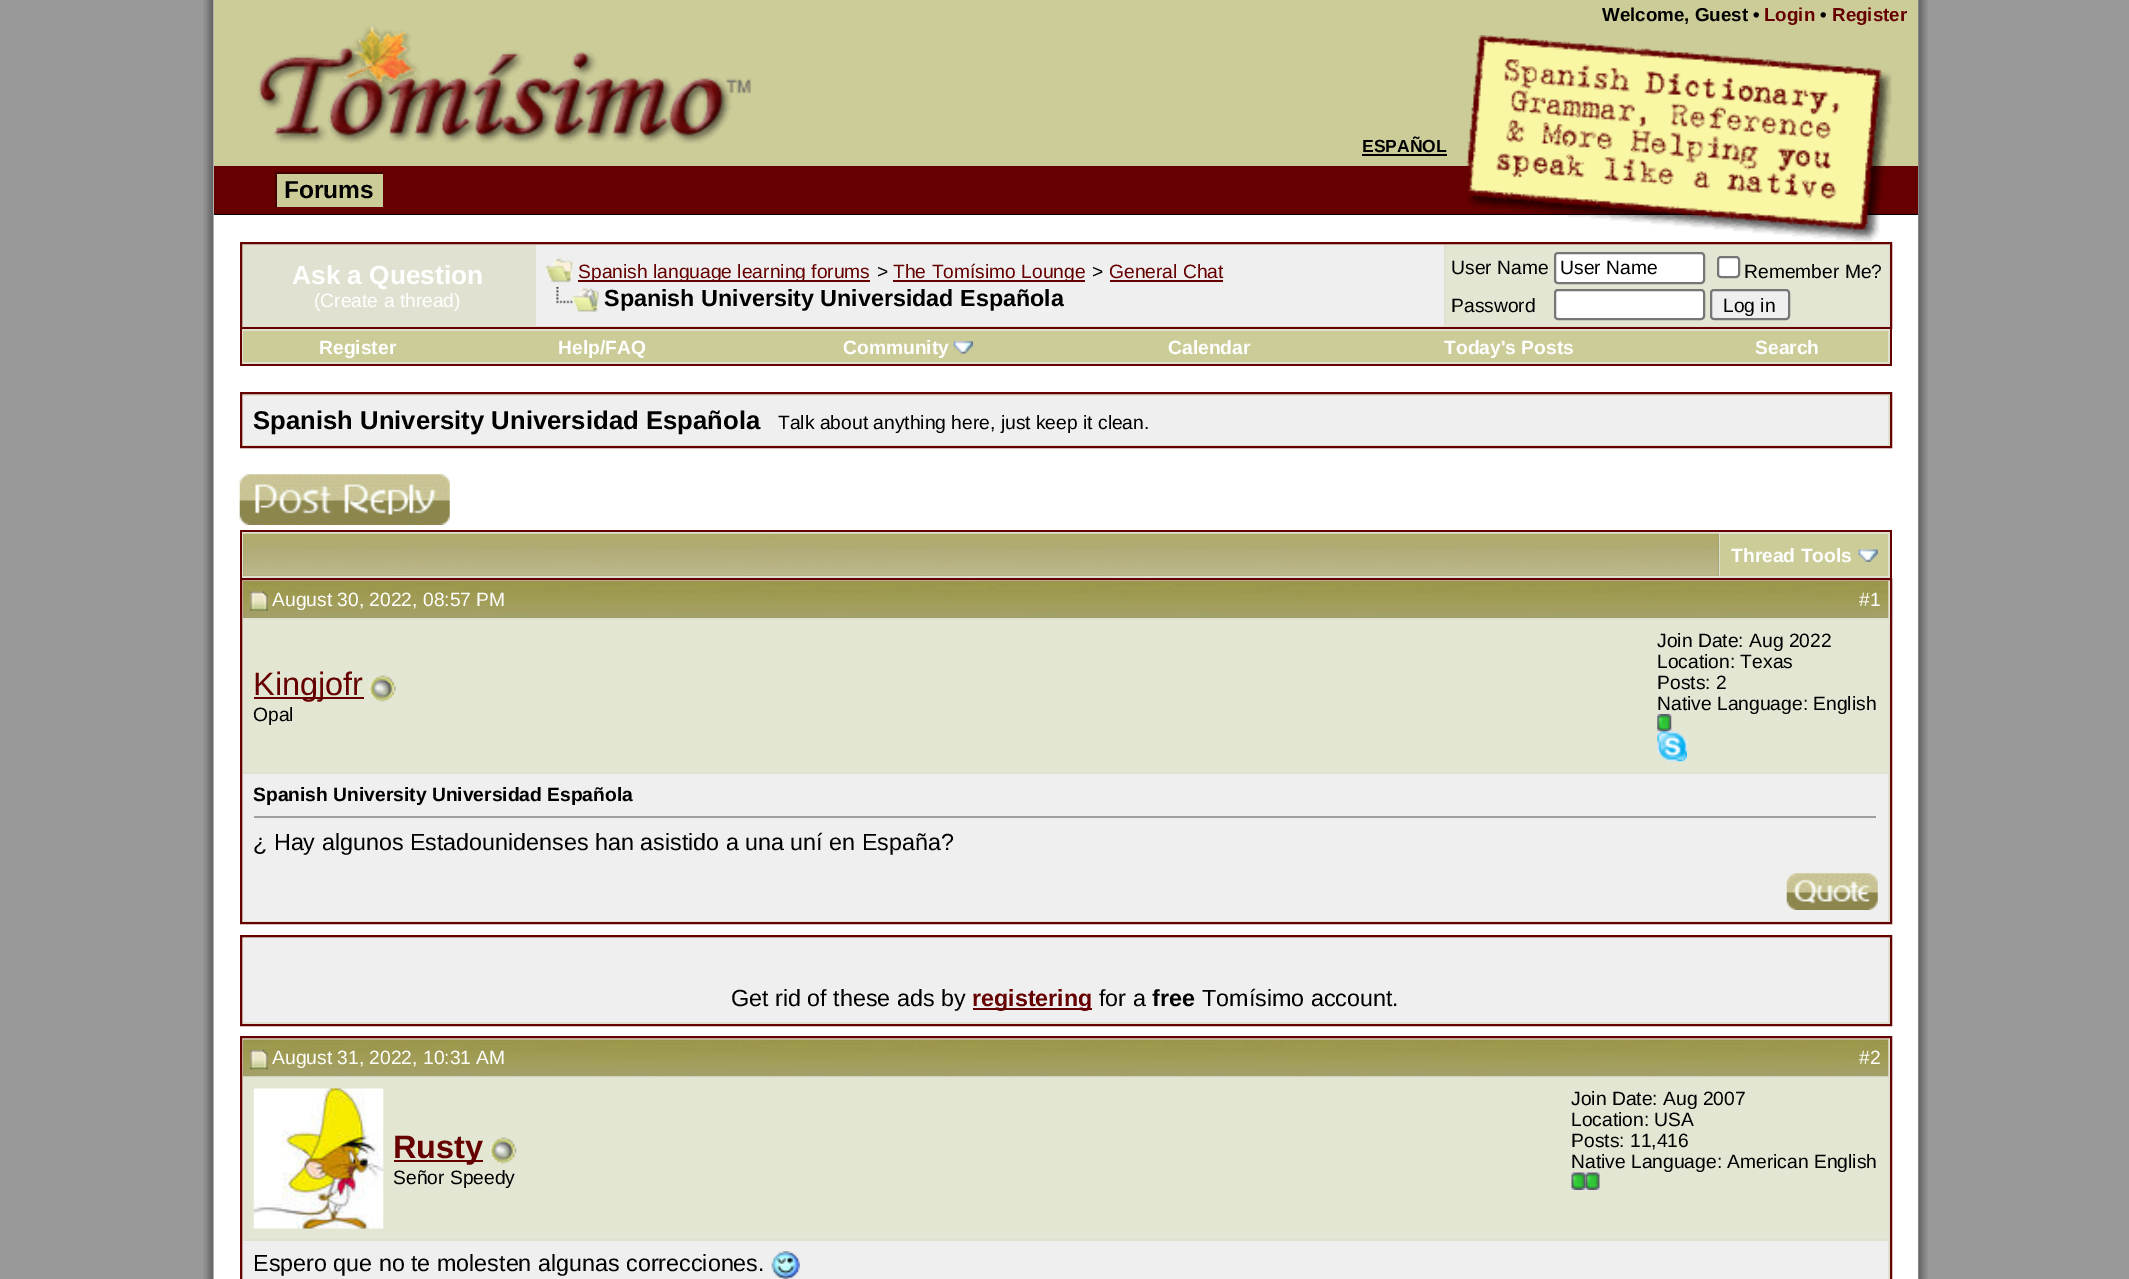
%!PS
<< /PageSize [2129 1279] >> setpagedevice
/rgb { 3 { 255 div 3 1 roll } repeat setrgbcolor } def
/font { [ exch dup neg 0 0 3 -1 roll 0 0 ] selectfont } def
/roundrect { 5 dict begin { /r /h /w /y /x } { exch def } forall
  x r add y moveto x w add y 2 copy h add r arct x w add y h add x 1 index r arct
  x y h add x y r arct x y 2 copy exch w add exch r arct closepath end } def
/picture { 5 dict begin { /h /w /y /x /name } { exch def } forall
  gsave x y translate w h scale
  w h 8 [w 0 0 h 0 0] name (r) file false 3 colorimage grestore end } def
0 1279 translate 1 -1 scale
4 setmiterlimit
153 153 153 rgb
0 0 2129 1279 rectfill
(img/1.rgb) 203 0 1725 1279 picture
204 204 153 rgb
214 0 1704 166 rectfill
(img/2.rgb) 257 25 494 119 picture
[
  [1362 154 85 2 0 0 0]
  [214 166 1704 48 102 0 0]
  [214 214 1704 1 0 0 0]
  [214 215 1704 1064 255 255 255]
] { aload pop rgb rectfill } forall
(img/3.rgb) 1466 35 426 207 picture
[
  [277 174 106 33 204 204 153]
  [275 172 110 2 68 0 0]
  [383 172 2 2 102 0 0]
  [275 172 2 36 68 0 0]
] { aload pop rgb rectfill } forall
225 225 209 rgb
241 243 moveto 1891 243 lineto 1891 328 lineto 241 328 lineto closepath gsave fill grestore
102 0 0 rgb
2 setlinewidth
stroke
239 239 239 rgb
536 245 908 81 rectfill
(img/4.rgb) 546 258 27 25 picture
[
  [578 280 292 2 102 0 0]
  [893 280 192 2 102 0 0]
  [1110 280 113 2 102 0 0]
] { aload pop rgb rectfill } forall
(img/5.rgb) 556 287 43 25 picture
226 230 211 rgb
1446 245 442 81 rectfill
255 255 255 rgb
1555 253 149 30 3 roundrect gsave fill grestore
118 118 118 rgb
stroke
255 255 255 rgb
1718 257 21 20 3 roundrect gsave fill grestore
118 118 118 rgb
stroke
255 255 255 rgb
1555 290 149 29 3 roundrect gsave fill grestore
118 118 118 rgb
stroke
239 239 239 rgb
1711 290 78 29 3 roundrect gsave fill grestore
118 118 118 rgb
stroke
[
  [242 329 1648 35 225 225 209]
  [1890 329 2 37 102 0 0]
  [240 364 1652 2 102 0 0]
  [240 329 2 37 102 0 0]
  [243 331 1645 31 204 204 153]
] { aload pop rgb rectfill } forall
(img/6.rgb) 953 341 20 13 picture
225 225 209 rgb
241 393 moveto 1891 393 lineto 1891 447 lineto 241 447 lineto closepath gsave fill grestore
102 0 0 rgb
stroke
239 239 239 rgb
243 396 1645 49 rectfill
(img/7.rgb) 239 474 211 51 picture
[
  [242 532 1648 46 225 225 209]
  [240 530 1652 2 102 0 0]
  [1890 530 2 48 102 0 0]
  [240 530 2 48 102 0 0]
  [243 534 1476 42 153 153 102]
] { aload pop rgb rectfill } forall
(img/8.rgb) 243 533 1476 43 picture
204 204 153 rgb
1720 534 168 42 rectfill
(img/9.rgb) 1858 549 20 13 picture
225 225 209 rgb
241 579 moveto 1891 579 lineto 1891 923 lineto 241 923 lineto closepath gsave fill grestore
102 0 0 rgb
stroke
153 153 102 rgb
243 581 1645 37 rectfill
(img/10.rgb) 243 581 1646 37 picture
(img/11.rgb) 250 591 18 20 picture
226 230 211 rgb
243 620 1645 152 rectfill
102 0 0 rgb
254 697 110 2 rectfill
(img/12.rgb) 369 675 27 27 picture
(img/13.rgb) 1657 714 15 18 picture
(img/14.rgb) 1657 731 30 31 picture
[
  [243 774 1645 147 239 239 239]
  [254 816 1624 2 159 159 159]
  [1876 816 2 2 238 238 238]
] { aload pop rgb rectfill } forall
(img/15.rgb) 1786 873 92 37 picture
225 225 209 rgb
241 936 moveto 1891 936 lineto 1891 1025 lineto 241 1025 lineto closepath gsave fill grestore
102 0 0 rgb
stroke
239 239 239 rgb
243 938 1645 84 rectfill
102 0 0 rgb
973 1008 119 2 rectfill
225 225 209 rgb
241 1037 moveto 1891 1037 lineto 1891 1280 lineto 241 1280 lineto closepath gsave fill grestore
102 0 0 rgb
stroke
(img/16.rgb) 243 1039 1646 38 picture
(img/17.rgb) 250 1050 18 20 picture
226 230 211 rgb
243 1078 1645 161 rectfill
(img/18.rgb) 253 1088 131 141 picture
102 0 0 rgb
394 1160 89 2 rectfill
(img/19.rgb) 490 1137 27 27 picture
(img/20.rgb) 1571 1172 15 18 picture
(img/21.rgb) 1585 1172 15 18 picture
239 239 239 rgb
243 1241 1645 38 rectfill
(img/22.rgb) 771 1251 29 28 picture
/LiberationSans-Bold 18.75 font
0 0 0 rgb
1602 21 moveto (Welcome, Guest •) show
102 0 0 rgb
1764 21 moveto (Login) show
0 0 0 rgb
1820 21 moveto (•) show
102 0 0 rgb
1832 21 moveto (Register) show
/LiberationSans-Bold 17.5 font
0 0 0 rgb
1362 152 moveto (ESPAÑOL) show
/LiberationSans-Bold 24.5 font
284 198 moveto (Forums) show
/LiberationSans-Bold 26.25 font
255 255 255 rgb
292 284 moveto (Ask a Question) show
/LiberationSans-Regular 19.25 font
314 307 moveto (\(Create a thread\)) show
102 0 0 rgb
578 278 moveto (Spanish language learning forums) show
0 0 0 rgb
877 278 moveto (>) show
102 0 0 rgb
893 278 moveto (The Tomísimo Lounge) show
0 0 0 rgb
1092 278 moveto (>) show
102 0 0 rgb
1109 278 moveto (General Chat) show
/LiberationSans-Bold 23.3 font
0 0 0 rgb
604 306 moveto (Spanish University Universidad Española) show
/LiberationSans-Regular 19.25 font
[
  [(User Name) 1451 274]
  [(User Name) 1560 274]
  [(Remember Me?) 1744 278]
  [(Password) 1451 312]
  [(Log in) 1723 312]
] { aload pop moveto show } forall
/LiberationSans-Bold 19.25 font
255 255 255 rgb
[
  [(Register) 319 354]
  [(Help/FAQ) 558 354]
  [(Community) 843 354]
  [(Calendar) 1168 354]
  [(Today's Posts) 1444 354]
  [(Search) 1755 354]
] { aload pop moveto show } forall
/LiberationSans-Bold 25.7 font
0 0 0 rgb
253 429 moveto (Spanish University Universidad Española) show
/LiberationSans-Regular 19.25 font
778 429 moveto (Talk about anything here, just keep it clean.) show
/LiberationSans-Bold 19.25 font
255 255 255 rgb
1731 562 moveto (Thread Tools) show
/LiberationSans-Regular 19.25 font
272 606 moveto (August 30, 2022, 08:57 PM) show
1859 606 moveto (#1) show
/LiberationSans-Regular 32.5 font
102 0 0 rgb
253 695 moveto (Kingjofr) show
/LiberationSans-Regular 19.25 font
0 0 0 rgb
[
  [(Opal) 253 721]
  [(Join Date: Aug 2022) 1657 647]
  [(Location: Texas) 1657 668]
  [(Posts: 2) 1657 689]
  [(Native Language: English) 1657 710]
] { aload pop moveto show } forall
/LiberationSans-Bold 19.25 font
253 801 moveto (Spanish University Universidad Española) show
/LiberationSans-Regular 23.3 font
253 850 moveto (¿ Hay algunos Estadounidenses han asistido a una uní en España?) show
731 1006 moveto (Get rid of these ads by) show
/LiberationSans-Bold 23.3 font
102 0 0 rgb
972 1006 moveto (registering) show
/LiberationSans-Regular 23.3 font
0 0 0 rgb
1099 1006 moveto (for a) show
/LiberationSans-Bold 23.3 font
1152 1006 moveto (free) show
/LiberationSans-Regular 23.3 font
1202 1006 moveto (Tomísimo account.) show
/LiberationSans-Regular 19.25 font
255 255 255 rgb
272 1064 moveto (August 31, 2022, 10:31 AM) show
1859 1064 moveto (#2) show
/LiberationSans-Bold 32.5 font
102 0 0 rgb
393 1158 moveto (Rusty) show
/LiberationSans-Regular 19.25 font
0 0 0 rgb
[
  [(Señor Speedy) 393 1184]
  [(Join Date: Aug 2007) 1571 1105]
  [(Location: USA) 1571 1126]
  [(Posts: 11,416) 1571 1147]
  [(Native Language: American English) 1571 1168]
] { aload pop moveto show } forall
/LiberationSans-Regular 23.3 font
253 1271 moveto (Espero que no te molesten algunas correcciones.) show
showpage
